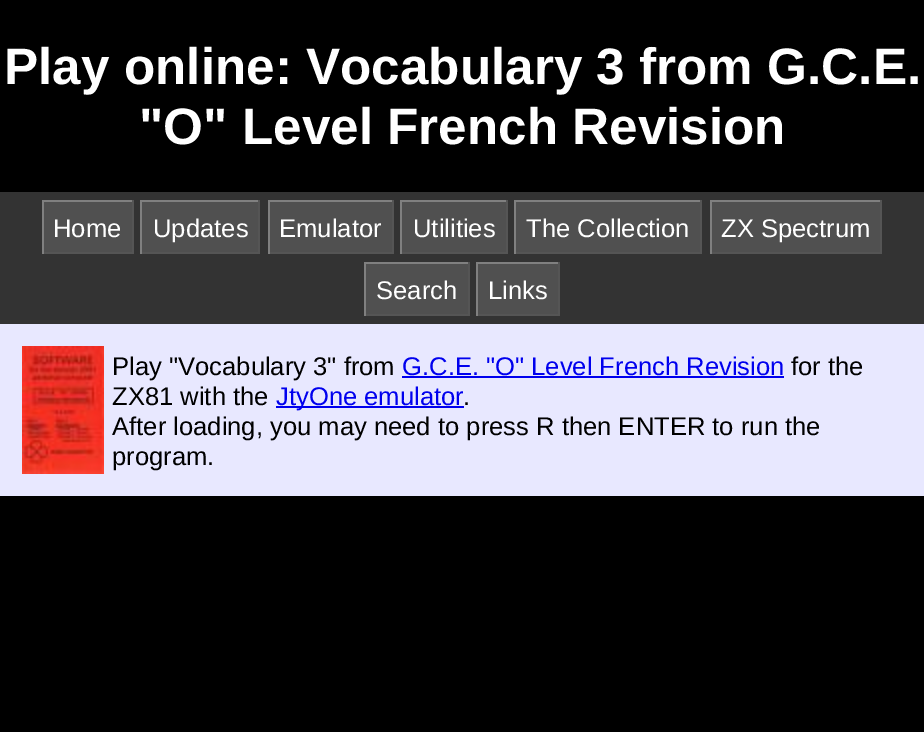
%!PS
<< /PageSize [924 732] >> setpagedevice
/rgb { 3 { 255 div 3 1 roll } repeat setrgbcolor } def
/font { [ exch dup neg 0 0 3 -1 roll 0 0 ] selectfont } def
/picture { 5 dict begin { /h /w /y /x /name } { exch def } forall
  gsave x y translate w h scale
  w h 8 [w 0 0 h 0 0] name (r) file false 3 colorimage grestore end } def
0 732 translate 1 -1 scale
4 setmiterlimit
232 232 255 rgb
0 0 924 732 rectfill
[
  [0 0 924 192 0 0 0]
  [0 192 924 132 51 51 51]
  [44 202 88 50 80 80 80]
  [42 200 92 2 128 128 128]
  [132 200 2 54 85 85 85]
  [42 252 92 2 85 85 85]
  [42 200 2 54 128 128 128]
  [142 202 116 50 80 80 80]
  [140 200 120 2 128 128 128]
  [258 200 2 54 85 85 85]
  [140 252 120 2 85 85 85]
  [140 200 2 54 128 128 128]
  [270 202 122 50 80 80 80]
  [268 200 126 2 128 128 128]
  [392 200 2 54 85 85 85]
  [268 252 126 2 85 85 85]
  [268 200 2 54 128 128 128]
  [402 202 104 50 80 80 80]
  [400 200 108 2 128 128 128]
  [506 200 2 54 85 85 85]
  [400 252 108 2 85 85 85]
  [400 200 2 54 128 128 128]
  [516 202 184 50 80 80 80]
  [514 200 188 2 128 128 128]
  [700 200 2 54 85 85 85]
  [514 252 188 2 85 85 85]
  [514 200 2 54 128 128 128]
  [712 202 168 50 80 80 80]
  [710 200 172 2 128 128 128]
  [880 200 2 54 85 85 85]
  [710 252 172 2 85 85 85]
  [710 200 2 54 128 128 128]
  [366 264 102 50 80 80 80]
  [364 262 106 2 128 128 128]
  [468 262 2 54 85 85 85]
  [364 314 106 2 85 85 85]
  [364 262 2 54 128 128 128]
  [478 264 80 50 80 80 80]
  [476 262 84 2 128 128 128]
  [558 262 2 54 85 85 85]
  [476 314 84 2 85 85 85]
  [476 262 2 54 128 128 128]
] { aload pop rgb rectfill } forall
(img/1.rgb) 22 346 82 128 picture
[
  [402 376 382 2 0 0 238]
  [276 406 188 2 0 0 238]
  [0 496 924 236 0 0 0]
] { aload pop rgb rectfill } forall
/LiberationSans-Bold 51.25 font
255 255 255 rgb
4 84 moveto (Play online: Vocabulary 3 from G.C.E.) show
139 144 moveto ("O" Level French Revision) show
/LiberationSans-Regular 25.6 font
[
  [(Home) 53 237]
  [(Updates) 153 237]
  [(Emulator) 279 237]
  [(Utilities) 413 237]
  [(The Collection) 526 237]
  [(ZX Spectrum) 721 237]
  [(Search) 376 299]
  [(Links) 488 299]
] { aload pop moveto show } forall
0 0 0 rgb
112 375 moveto (Play "Vocabulary 3" from) show
0 0 238 rgb
402 375 moveto (G.C.E. "O" Level French Revision) show
0 0 0 rgb
791 375 moveto (for the) show
112 405 moveto (ZX81 with the) show
0 0 238 rgb
276 405 moveto (JtyOne emulator) show
0 0 0 rgb
[
  [(.) 463 405]
  [(After loading, you may need to press R then ENTER to run the) 112 435]
  [(program.) 112 465]
] { aload pop moveto show } forall
showpage
